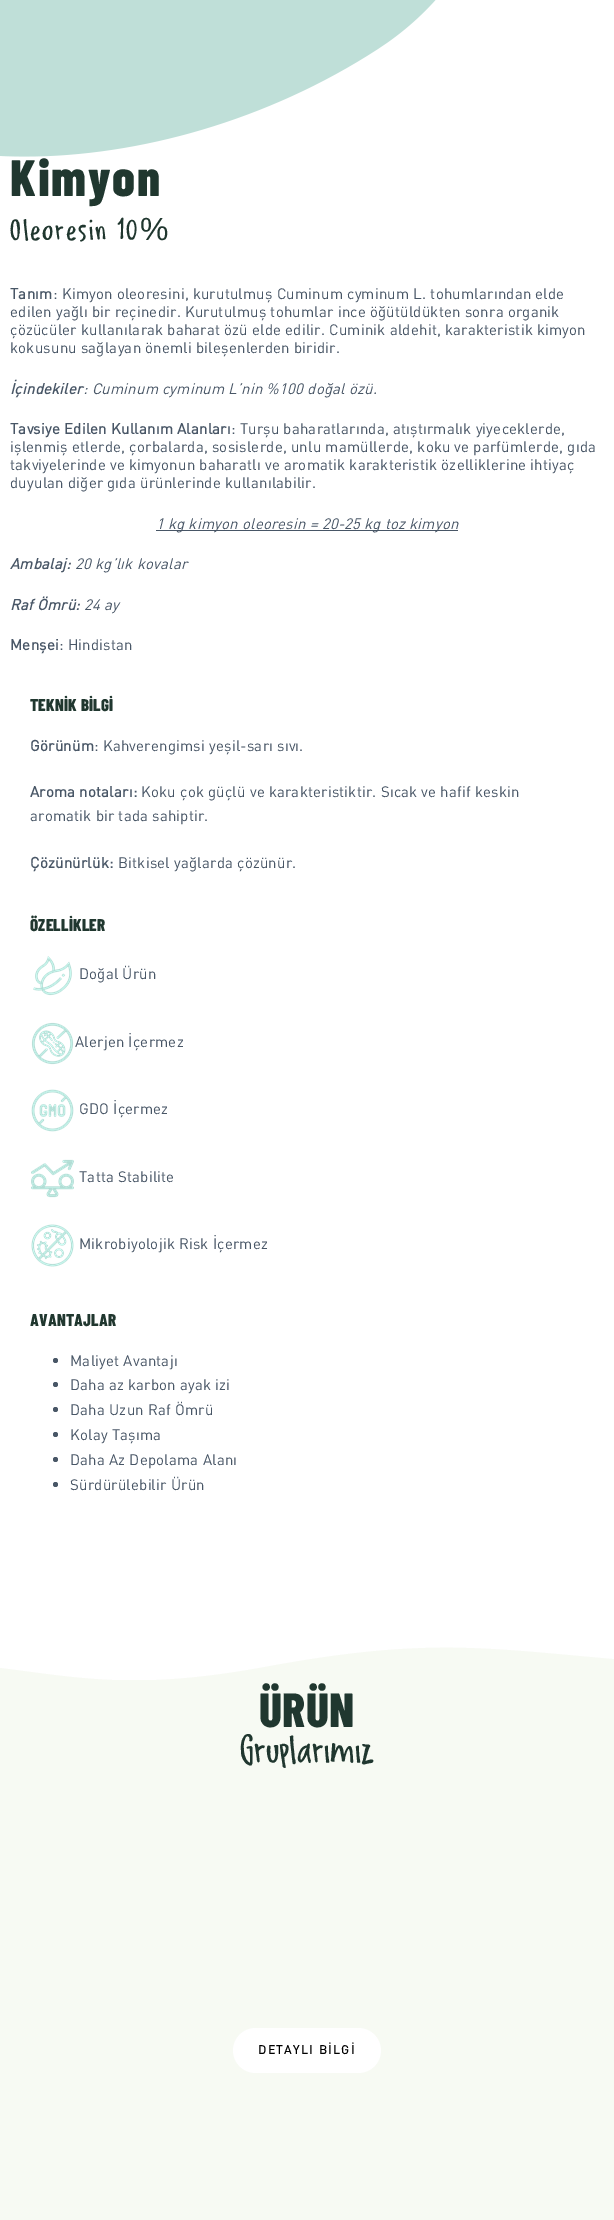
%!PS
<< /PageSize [614 2220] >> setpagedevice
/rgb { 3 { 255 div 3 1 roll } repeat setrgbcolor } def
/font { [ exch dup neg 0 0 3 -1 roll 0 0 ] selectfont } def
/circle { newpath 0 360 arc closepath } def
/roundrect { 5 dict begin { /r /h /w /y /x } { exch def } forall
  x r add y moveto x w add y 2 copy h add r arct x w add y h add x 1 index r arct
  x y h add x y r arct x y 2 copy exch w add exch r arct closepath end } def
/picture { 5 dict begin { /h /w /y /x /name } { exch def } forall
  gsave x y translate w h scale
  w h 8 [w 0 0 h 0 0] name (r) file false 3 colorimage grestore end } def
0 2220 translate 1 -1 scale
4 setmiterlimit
255 255 255 rgb
0 0 614 2220 rectfill
(img/1.rgb) 0 0 436 157 picture
72 86 102 rgb
156 530 302 1 rectfill
(img/2.rgb) 33 956 39 40 picture
(img/3.rgb) 31 1022 43 43 picture
(img/4.rgb) 31 1089 43 43 picture
(img/5.rgb) 31 1159 43 39 picture
(img/6.rgb) 31 1224 43 43 picture
55.5 1360.5 2.5 circle fill
55.5 1384.5 2.5 circle fill
55.5 1409.5 2.5 circle fill
55.5 1434.5 2.5 circle fill
55.5 1459.5 2.5 circle fill
55.5 1484.5 2.5 circle fill
247 250 243 rgb
0 1647 614 573 rectfill
gsave
0 1623 614 57 rectclip
255 255 255 rgb
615 1659 moveto 487 1648 427 1637 269 1666 curveto 125 1693 71 1675 -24 1665 curveto -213 1649 -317 1631 -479 1659 curveto -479 1603 lineto 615 1603 lineto closepath fill
grestore
255 255 255 rgb
233 2028 148 45 22.5 roundrect fill
/BarlowCondensed-ExtraBold 51 font
32 55 47 rgb
10 196 moveto 1.75 0 (Kimyon) ashow
/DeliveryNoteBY-Regular 32 font
10 240 moveto 1.75 0 (Oleoresin 10) ashow
/LiberationSans-Regular 32 font
140 240 moveto 1.75 0 (%) ashow
/DIN-Bold 15 font
72 86 102 rgb
10 299 moveto 0.2 0 (Tanım) ashow
/DIN-Regular 15 font
53 299 moveto 0.2 0 (: Kimyon oleoresini, kurutulmuş Cuminum cyminum L. tohumlarından elde) ashow
10 317 moveto 0.2 0 (edilen yağlı bir reçinedir. Kurutulmuş tohumlar ince öğütüldükten sonra organik) ashow
10 335 moveto 0.2 0 (çözücüler kullanılarak baharat özü elde edilir. Cuminik aldehit, karakteristik kimyon) ashow
10 353 moveto 0.2 0 (kokusunu sağlayan önemli bileşenlerden biridir.) ashow
/DIN-BoldItalic 15 font
10 394 moveto 0.2 0 (İçindekiler) ashow
/DIN-Italic 15 font
83 394 moveto 0.2 0 (: Cuminum cyminum L’nin %100 doğal özü.) ashow
/DIN-Bold 15 font
10 434 moveto 0.2 0 (Tavsiye Edilen Kullanım Alanları) ashow
/DIN-Regular 15 font
231 434 moveto 0.2 0 (: Turşu baharatlarında, atıştırmalık yiyeceklerde,) ashow
10 452 moveto 0.2 0 (işlenmiş etlerde, çorbalarda, sosislerde, unlu mamüllerde, koku ve parfümlerde, gıda) ashow
10 470 moveto 0.2 0 (takviyelerinde ve kimyonun baharatlı ve aromatik karakteristik özelliklerine ihtiyaç) ashow
10 488 moveto 0.2 0 (duyulan diğer gıda ürünlerinde kullanılabilir.) ashow
/DIN-Italic 15 font
156 529 moveto 0.2 0 (1 kg kimyon oleoresin = 20-25 kg toz kimyon) ashow
/DIN-BoldItalic 15 font
10 569 moveto 0.2 0 (Ambalaj:) ashow
/DIN-Italic 15 font
75 569 moveto 0.2 0 (20 kg’lık kovalar) ashow
/DIN-BoldItalic 15 font
10 610 moveto 0.2 0 (Raf Ömrü:) ashow
/DIN-Italic 15 font
84 610 moveto 0.2 0 (24 ay) ashow
/DIN-Bold 15 font
10 650 moveto 0.2 0 (Menşei) ashow
/DIN-Regular 15 font
59 650 moveto 0.2 0 (: Hindistan) ashow
/BarlowCondensed-ExtraBold 17 font
32 55 47 rgb
30 711 moveto 0.2 0 (TEKNİK BİLGİ) ashow
/DIN-Bold 15 font
72 86 102 rgb
30 751 moveto 0.2 0 (Görünüm) ashow
/DIN-Regular 15 font
94 751 moveto 0.2 0 (: Kahverengimsi yeşil-sarı sıvı.) ashow
/DIN-Bold 15 font
30 797 moveto 0.2 0 (Aroma notaları:) ashow
/DIN-Regular 15 font
141 797 moveto 0.2 0 (Koku çok güçlü ve karakteristiktir. Sıcak ve hafif keskin) ashow
30 821 moveto 0.2 0 (aromatik bir tada sahiptir.) ashow
/DIN-Bold 15 font
30 868 moveto 0.2 0 (Çözünürlük:) ashow
/DIN-Regular 15 font
118 868 moveto 0.2 0 (Bitkisel yağlarda çözünür.) ashow
/BarlowCondensed-ExtraBold 17 font
32 55 47 rgb
30 931 moveto 0.2 0 (ÖZELLİKLER) ashow
/DIN-Regular 15 font
72 86 102 rgb
79 979 moveto 0.2 0 (Doğal Ürün) ashow
75 1047 moveto 0.2 0 (Alerjen İçermez) ashow
79 1114 moveto 0.2 0 (GDO İçermez) ashow
79 1182 moveto 0.2 0 (Tatta Stabilite) ashow
79 1249 moveto 0.2 0 (Mikrobiyolojik Risk İçermez) ashow
/BarlowCondensed-ExtraBold 17 font
32 55 47 rgb
30 1326 moveto 0.2 0 (AVANTAJLAR) ashow
/DIN-Regular 15 font
72 86 102 rgb
70 1366 moveto 0.2 0 (Maliyet Avantajı) ashow
70 1390 moveto 0.2 0 (Daha az karbon ayak izi) ashow
70 1415 moveto 0.2 0 (Daha Uzun Raf Ömrü) ashow
70 1440 moveto 0.2 0 (Kolay Taşıma) ashow
70 1465 moveto 0.2 0 (Daha Az Depolama Alanı) ashow
70 1490 moveto 0.2 0 (Sürdürülebilir Ürün) ashow
/BarlowCondensed-ExtraBold 48 font
32 55 47 rgb
259 1727 moveto 0.2 0 (ÜRÜN) ashow
/DeliveryNoteBY-Regular 42 font
240 1763 moveto 0.2 0 (Gruplarımız) ashow
/DIN-Bold 12 font
0 0 0 rgb
258 2054 moveto 1.5 0 (DETAYLI BİLGİ) ashow
showpage
